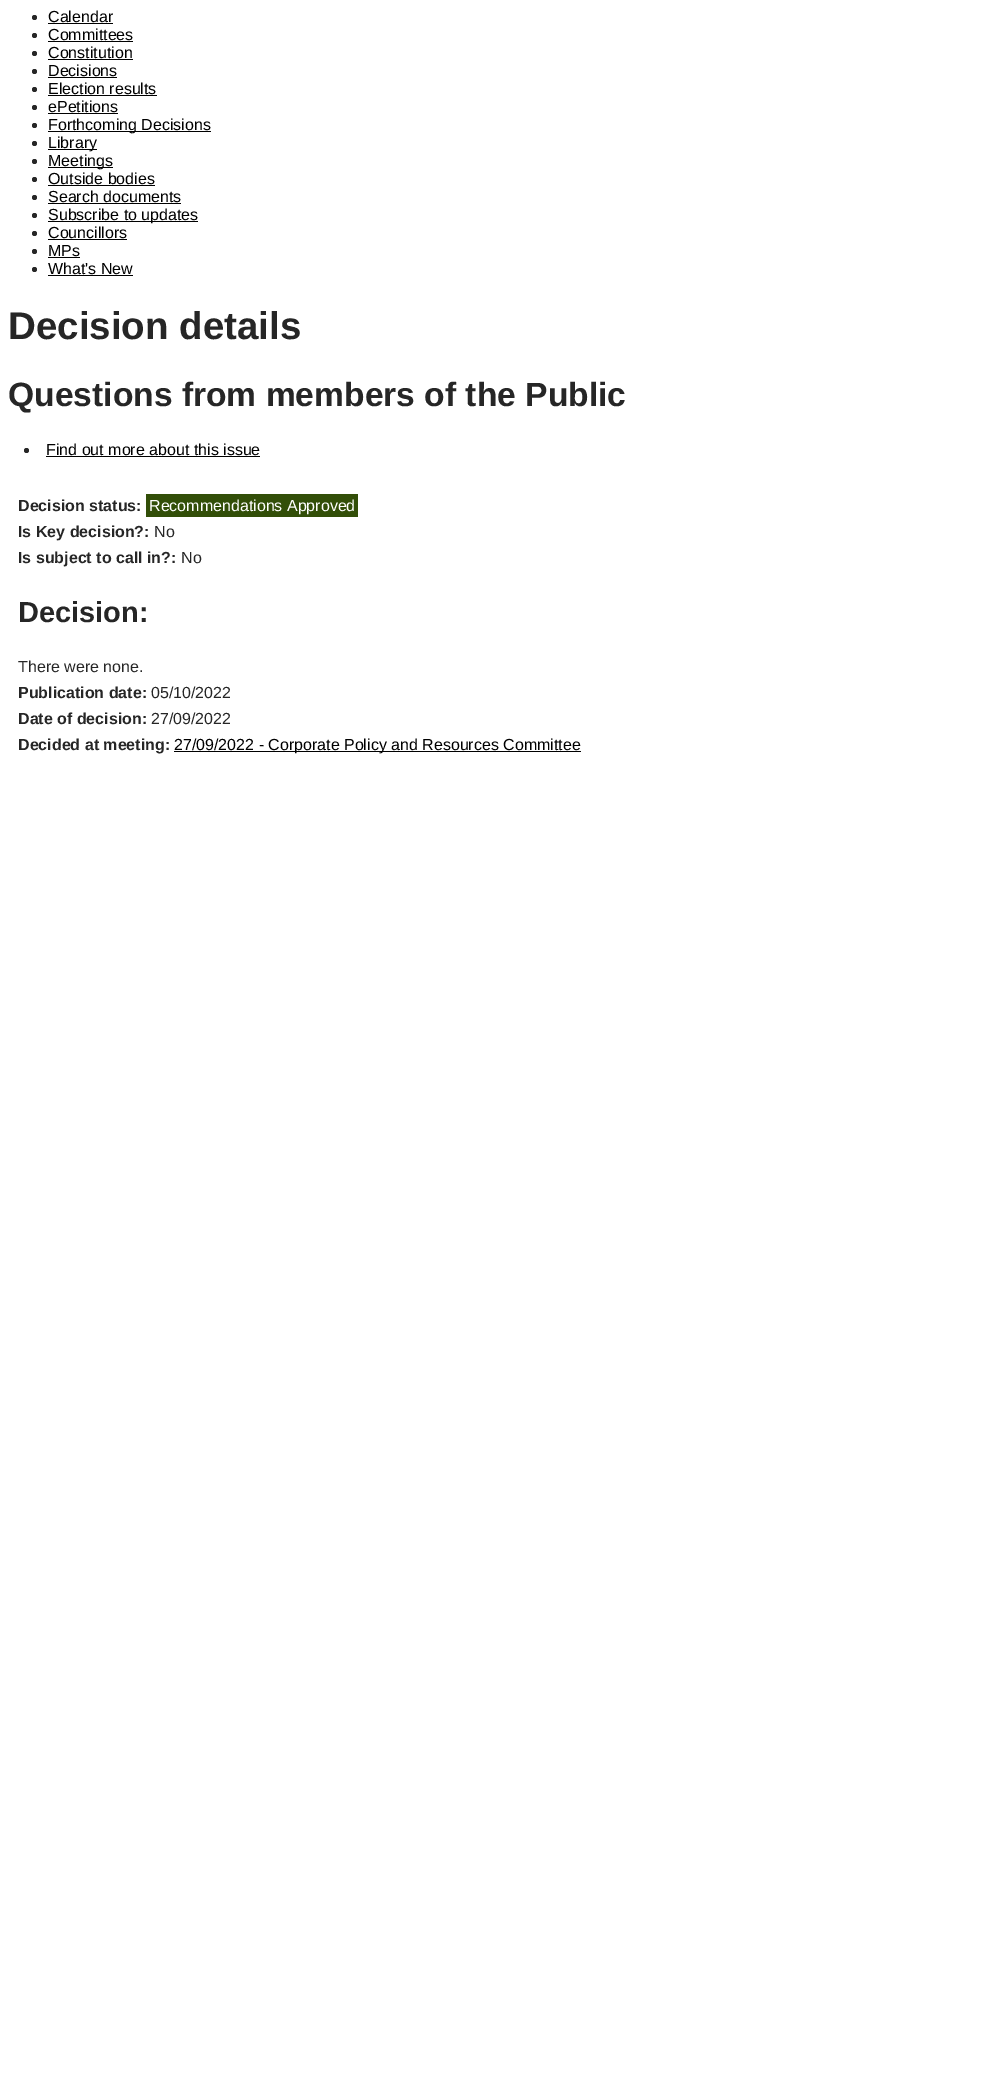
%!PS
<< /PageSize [1004 2093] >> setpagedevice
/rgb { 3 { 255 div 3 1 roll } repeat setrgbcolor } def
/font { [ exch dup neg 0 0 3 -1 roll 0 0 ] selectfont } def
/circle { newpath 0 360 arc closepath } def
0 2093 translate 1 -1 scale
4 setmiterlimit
255 255 255 rgb
0 0 1004 2093 rectfill
38 38 38 rgb
34.5 17.5 2.5 circle fill
0 0 0 rgb
48 23 65 1 rectfill
38 38 38 rgb
34.5 35.5 2.5 circle fill
0 0 0 rgb
48 41 85 1 rectfill
38 38 38 rgb
34.5 53.5 2.5 circle fill
0 0 0 rgb
48 59 85 1 rectfill
38 38 38 rgb
34.5 71.5 2.5 circle fill
0 0 0 rgb
48 77 69 1 rectfill
38 38 38 rgb
34.5 89.5 2.5 circle fill
0 0 0 rgb
48 95 109 1 rectfill
38 38 38 rgb
34.5 107.5 2.5 circle fill
0 0 0 rgb
48 113 70 1 rectfill
38 38 38 rgb
34.5 125.5 2.5 circle fill
0 0 0 rgb
48 131 163 1 rectfill
38 38 38 rgb
34.5 143.5 2.5 circle fill
0 0 0 rgb
48 149 49 1 rectfill
38 38 38 rgb
34.5 161.5 2.5 circle fill
0 0 0 rgb
48 167 65 1 rectfill
38 38 38 rgb
34.5 179.5 2.5 circle fill
0 0 0 rgb
48 185 107 1 rectfill
38 38 38 rgb
34.5 197.5 2.5 circle fill
0 0 0 rgb
48 203 133 1 rectfill
38 38 38 rgb
34.5 215.5 2.5 circle fill
0 0 0 rgb
48 221 150 1 rectfill
38 38 38 rgb
34.5 233.5 2.5 circle fill
0 0 0 rgb
48 239 79 1 rectfill
38 38 38 rgb
34.5 251.5 2.5 circle fill
0 0 0 rgb
48 257 32 1 rectfill
38 38 38 rgb
34.5 269.5 2.5 circle fill
0 0 0 rgb
48 275 85 1 rectfill
38 38 38 rgb
26.5 450.5 2.5 circle fill
[
  [46 456 214 1 0 0 0]
  [146 494 212 23 50 78 8]
  [174 751 407 1 0 0 0]
] { aload pop rgb rectfill } forall
/LiberationSans-Regular 16 font
[
  [(Calendar) 48 22]
  [(Committees) 48 40]
  [(Constitution) 48 58]
  [(Decisions) 48 76]
  [(Election results) 48 94]
  [(ePetitions) 48 112]
  [(Forthcoming Decisions) 48 130]
  [(Library) 48 148]
  [(Meetings) 48 166]
  [(Outside bodies) 48 184]
  [(Search documents) 48 202]
  [(Subscribe to updates) 48 220]
  [(Councillors) 48 238]
  [(MPs) 48 256]
  [(What's New) 48 274]
] { aload pop moveto show } forall
/LiberationSans-Bold 38.5 font
38 38 38 rgb
8 339 moveto (Decision details) show
/LiberationSans-Bold 33.6 font
8 406 moveto (Questions from members of the Public) show
/LiberationSans-Regular 16 font
0 0 0 rgb
46 455 moveto (Find out more about this issue) show
/LiberationSans-Bold 16 font
38 38 38 rgb
18 511 moveto (Decision status:) show
/LiberationSans-Regular 16 font
255 255 255 rgb
149 511 moveto (Recommendations Approved) show
/LiberationSans-Bold 16 font
38 38 38 rgb
18 537 moveto (Is Key decision?:) show
/LiberationSans-Regular 16 font
154 537 moveto (No) show
/LiberationSans-Bold 16 font
18 563 moveto (Is subject to call in?:) show
/LiberationSans-Regular 16 font
181 563 moveto (No) show
/LiberationSans-Bold 29 font
18 622 moveto (Decision:) show
/LiberationSans-Regular 16 font
18 672 moveto (There were none.) show
/LiberationSans-Bold 16 font
18 698 moveto (Publication date:) show
/LiberationSans-Regular 16 font
151 698 moveto (05/10/2022) show
/LiberationSans-Bold 16 font
18 724 moveto (Date of decision:) show
/LiberationSans-Regular 16 font
151 724 moveto (27/09/2022) show
/LiberationSans-Bold 16 font
18 750 moveto (Decided at meeting:) show
/LiberationSans-Regular 16 font
0 0 0 rgb
174 750 moveto (27/09/2022 - Corporate Policy and Resources Committee) show
showpage
